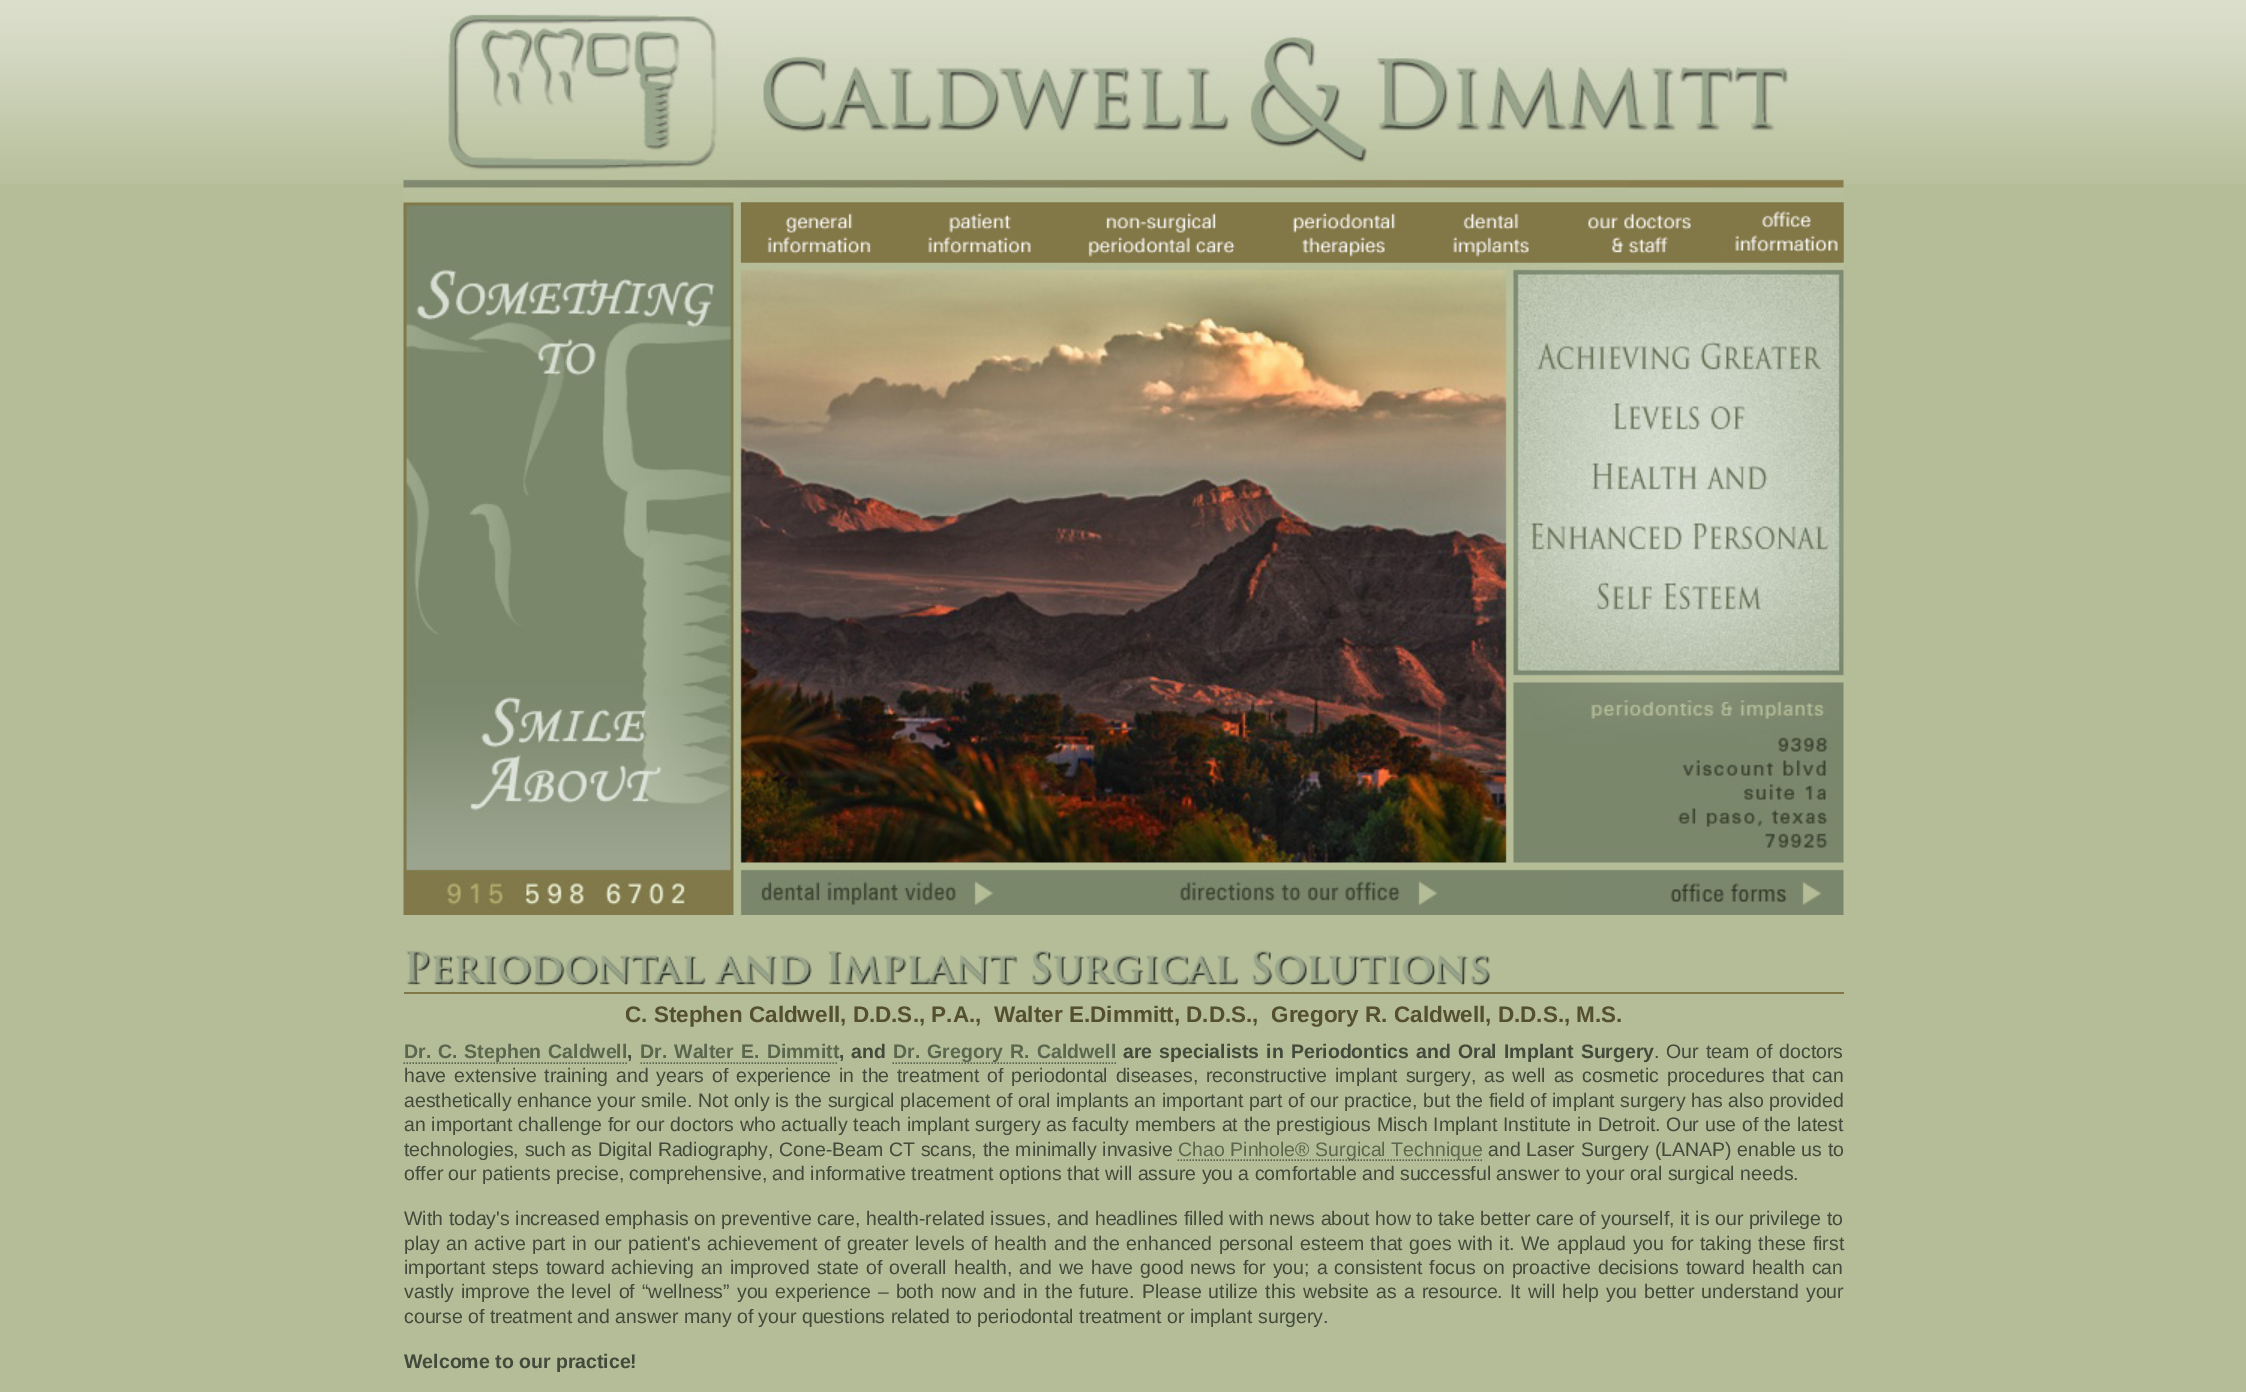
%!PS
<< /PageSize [2246 1392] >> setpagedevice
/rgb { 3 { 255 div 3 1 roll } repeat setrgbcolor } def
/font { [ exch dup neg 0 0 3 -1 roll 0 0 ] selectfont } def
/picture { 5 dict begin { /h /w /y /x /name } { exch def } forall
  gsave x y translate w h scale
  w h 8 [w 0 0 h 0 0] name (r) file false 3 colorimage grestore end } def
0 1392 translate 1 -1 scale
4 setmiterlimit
181 189 152 rgb
0 0 2246 1392 rectfill
(img/1.rgb) 0 0 2246 184 picture
(img/2.rgb) 403 14 1441 901 picture
(img/3.rgb) 741 202 158 61 picture
(img/4.rgb) 898 202 166 61 picture
(img/5.rgb) 1063 202 203 61 picture
(img/6.rgb) 1266 202 158 61 picture
(img/7.rgb) 1423 202 136 61 picture
(img/8.rgb) 1558 202 166 61 picture
(img/9.rgb) 1723 202 121 61 picture
130 119 70 rgb
404 992 1440 2 rectfill
(img/10.rgb) 406 950 300 36 picture
(img/11.rgb) 714 955 98 31 picture
(img/12.rgb) 828 951 190 35 picture
(img/13.rgb) 1032 950 207 36 picture
(img/14.rgb) 1252 949 238 37 picture
91 102 78 rgb
1.5 setlinewidth
[1.5 1.5] 0 setdash
403.5 1063 moveto 627 1063 lineto stroke
640.5 1063 moveto 838.5 1063 lineto stroke
892.5 1063 moveto 1116 1063 lineto stroke
1177.5 1160 moveto 1482 1160 lineto stroke
/LiberationSans-Bold 22.5 font
84 79 47 rgb
625 1022 moveto (C. Stephen Caldwell, D.D.S., P.A.,  Walter E.Dimmitt, D.D.S.,  Gregory R. Caldwell, D.D.S., M.S.) show
/LiberationSans-Bold 19.5 font
91 102 78 rgb
404 1058 moveto 1.5 0 32 (Dr. C. Stephen Caldwell) widthshow
67 74 59 rgb
627 1058 moveto (,) show
91 102 78 rgb
640 1058 moveto 1.75 0 32 (Dr. Walter E. Dimmitt) widthshow
67 74 59 rgb
839 1058 moveto 1.5 0 32 (, and) widthshow
91 102 78 rgb
893 1058 moveto 1.75 0 32 (Dr. Gregory R. Caldwell) widthshow
67 74 59 rgb
1123 1058 moveto 1.75 0 32 (are specialists in Periodontics and Oral Implant Surgery) widthshow
/LiberationSans-Regular 19.5 font
1654 1058 moveto 1.5 0 32 (. Our team of doctors) widthshow
404 1082 moveto 2.4 0 32 (have extensive training and years of experience in the treatment of periodontal diseases, reconstructive implant surgery, as well as cosmetic procedures that can) widthshow
404 1107 moveto 0.25 0 32 (aesthetically enhance your smile. Not only is the surgical placement of oral implants an important part of our practice, but the field of implant surgery has also) widthshow
1769 1107 moveto (provided) show
404 1131 moveto 0.35 0 32 (an important challenge for our doctors who actually teach implant surgery as faculty members at the prestigious Misch Implant Institute in Detroit. Our use of the latest) widthshow
404 1156 moveto 0.25 0 32 (technologies, such as Digital Radiography, Cone-Beam CT scans, the minimally invasive) widthshow
91 102 78 rgb
1178 1156 moveto 0.25 0 32 (Chao Pinhole® Surgical Technique) widthshow
67 74 59 rgb
1488 1156 moveto 0.25 0 32 (and Laser Surgery \(LANAP\) enable us to) widthshow
404 1180 moveto (offer our patients precise, comprehensive, and informative treatment options that will assure you a comfortable and successful answer to your oral surgical needs.) show
404 1225 moveto 0.1 0 32 (With today's increased emphasis on preventive care, health-related issues, and headlines filled with news about how to take better care of yourself, it is our privilege to) widthshow
404 1250 moveto 1.1 0 32 (play an active part in our patient's achievement of greater levels of health and the enhanced personal esteem that goes with it. We applaud you for taking these first) widthshow
404 1274 moveto 1.6 0 32 (important steps toward achieving an improved state of overall health, and we have good news for you; a consistent focus on proactive decisions toward health can) widthshow
404 1298 moveto 1.65 0 32 (vastly improve the level of “wellness” you experience – both now and in the future. Please utilize this website as a resource. It will help you better understand your) widthshow
404 1323 moveto (course of treatment and answer many of your questions related to periodontal treatment or implant surgery.) show
/LiberationSans-Bold 19.5 font
404 1368 moveto (Welcome to our practice!) show
showpage
